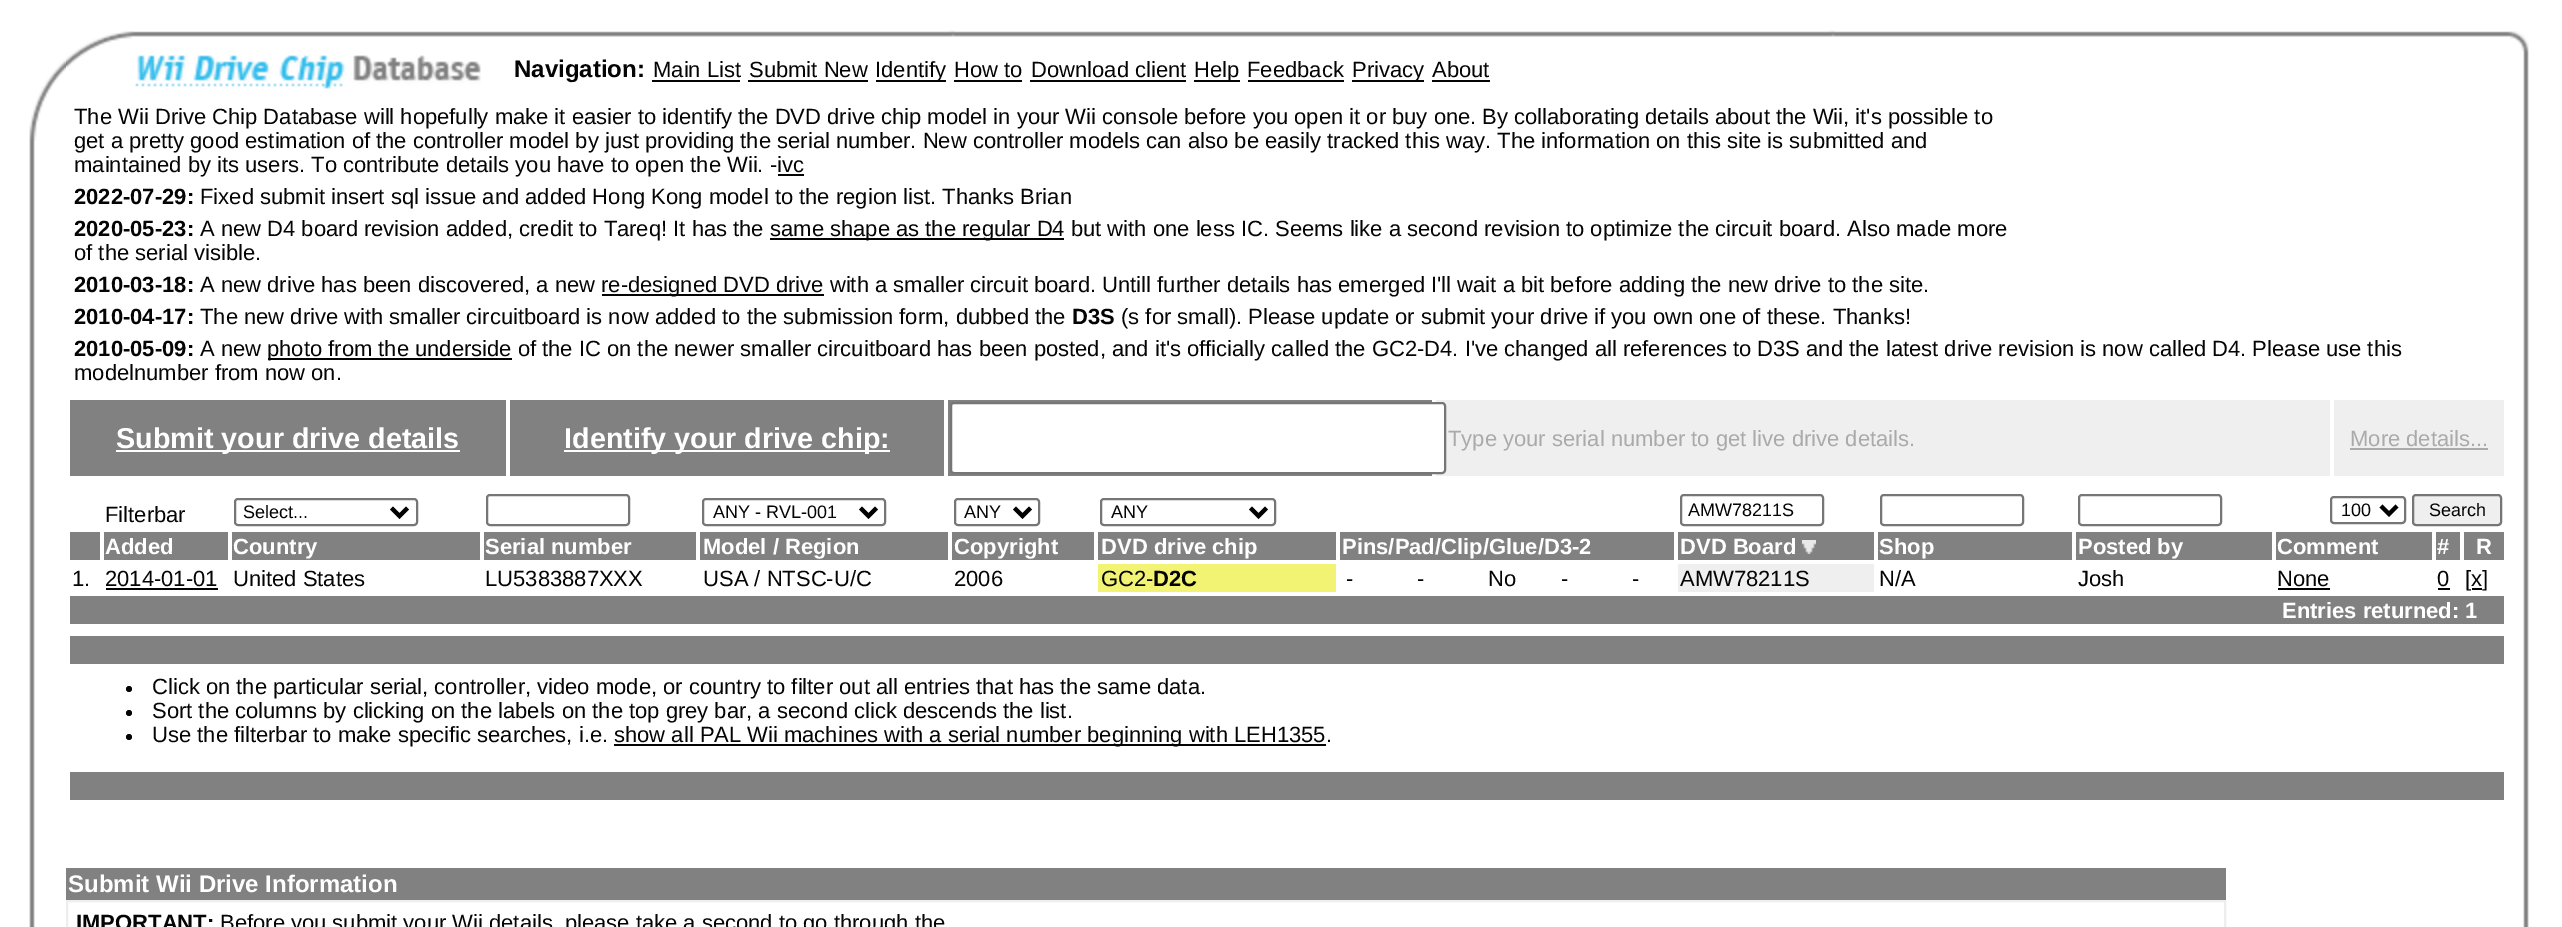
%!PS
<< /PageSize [2562 927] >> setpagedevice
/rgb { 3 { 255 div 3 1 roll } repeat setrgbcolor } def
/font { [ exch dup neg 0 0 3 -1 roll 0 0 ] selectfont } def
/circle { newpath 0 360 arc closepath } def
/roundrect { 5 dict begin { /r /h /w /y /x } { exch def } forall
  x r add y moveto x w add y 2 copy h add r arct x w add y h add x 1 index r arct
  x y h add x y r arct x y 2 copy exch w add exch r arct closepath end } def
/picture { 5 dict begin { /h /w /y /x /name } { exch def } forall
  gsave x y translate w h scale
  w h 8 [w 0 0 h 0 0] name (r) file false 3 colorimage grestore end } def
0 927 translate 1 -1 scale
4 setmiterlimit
255 255 255 rgb
0 0 2562 927 rectfill
(img/1.rgb) 29 141 6 786 picture
(img/2.rgb) 29 16 37 125 picture
(img/3.rgb) 134 30 2374 7 picture
(img/4.rgb) 66 30 68 38 picture
(img/5.rgb) 135 55 346 34 picture
[
  [652 80 88 2 4 4 4]
  [748 80 120 2 4 4 4]
  [876 80 70 2 4 4 4]
  [954 80 68 2 4 4 4]
  [1030 80 156 2 4 4 4]
  [1194 80 46 2 4 4 4]
  [1248 80 96 2 4 4 4]
  [1352 80 72 2 4 4 4]
  [1432 80 58 2 4 4 4]
] { aload pop rgb rectfill } forall
(img/6.rgb) 2523 52 6 875 picture
(img/7.rgb) 2508 16 21 36 picture
[
  [778 174 26 2 4 4 4]
  [770 238 294 2 4 4 4]
  [602 294 222 2 4 4 4]
  [268 358 244 2 4 4 4]
  [70 400 436 76 129 129 129]
  [116 450 344 2 255 255 255]
  [510 400 434 76 129 129 129]
  [564 450 326 2 255 255 255]
  [948 400 484 76 129 129 129]
  [1436 400 894 76 239 239 239]
] { aload pop rgb rectfill } forall
255 255 255 rgb
951 403 494 70 3 roundrect gsave fill grestore
118 118 118 rgb
2 setlinewidth
stroke
239 239 239 rgb
2334 400 170 76 rectfill
170 170 170 rgb
2350 448 138 2 rectfill
118 118 118 rgb
235 499 182 26 3 roundrect stroke
0 0 0 rgb
4 setlinewidth
391.5 508 moveto 399.5 516 lineto 407.5 508 lineto stroke
118 118 118 rgb
2 setlinewidth
487 495 142 30 3 roundrect stroke
703 499 182 26 3 roundrect stroke
0 0 0 rgb
4 setlinewidth
860.5 508 moveto 868.5 516 lineto 876.5 508 lineto stroke
118 118 118 rgb
2 setlinewidth
955 499 84 26 3 roundrect stroke
0 0 0 rgb
4 setlinewidth
1014.5 508 moveto 1022.5 516 lineto 1030.5 508 lineto stroke
118 118 118 rgb
2 setlinewidth
1101 499 174 26 3 roundrect stroke
0 0 0 rgb
4 setlinewidth
1250.5 508 moveto 1258.5 516 lineto 1266.5 508 lineto stroke
118 118 118 rgb
2 setlinewidth
1681 495 142 30 3 roundrect stroke
1881 495 142 30 3 roundrect stroke
2079 495 142 30 3 roundrect stroke
2331 497 74 26 3 roundrect stroke
0 0 0 rgb
4 setlinewidth
2381 506 moveto 2389 514 lineto 2397 506 lineto stroke
239 239 239 rgb
2413 495 88 30 3 roundrect gsave fill grestore
118 118 118 rgb
2 setlinewidth
stroke
[
  [70 532 30 28 129 129 129]
  [104 532 124 28 129 129 129]
  [232 532 248 28 129 129 129]
  [484 532 212 28 129 129 129]
  [700 532 248 28 129 129 129]
  [952 532 142 28 129 129 129]
  [1098 532 238 28 129 129 129]
  [1340 532 334 28 129 129 129]
  [1678 532 196 28 129 129 129]
] { aload pop rgb rectfill } forall
(img/8.rgb) 1802 540 14 14 picture
[
  [1878 532 194 28 129 129 129]
  [2076 532 196 28 129 129 129]
  [2276 532 156 28 129 129 129]
  [2436 532 24 28 129 129 129]
  [2464 532 40 28 129 129 129]
  [106 588 112 2 4 4 4]
  [1098 564 238 28 242 242 115]
  [1678 564 196 28 239 239 239]
  [2278 588 52 2 4 4 4]
  [2438 588 12 2 4 4 4]
  [2472 588 10 2 4 4 4]
  [70 596 2434 28 129 129 129]
  [70 636 2434 28 129 129 129]
] { aload pop rgb rectfill } forall
4 4 4 rgb
129 689 3 circle fill
129 713 3 circle fill
129 737 3 circle fill
[
  [614 744 712 2 4 4 4]
  [70 772 2434 28 129 129 129]
  [66 868 2160 32 129 129 129]
] { aload pop rgb rectfill } forall
238 238 238 rgb
67 901 2158 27 rectstroke
/LiberationSans-Bold 24 font
4 4 4 rgb
514 77 moveto (Navigation:) show
/LiberationSans-Regular 22 font
[
  [(Main List) 653 77]
  [(Submit New) 749 77]
  [(Identify) 875 77]
  [(How to) 954 77]
  [(Download client) 1031 77]
  [(Help) 1194 77]
  [(Feedback) 1247 77]
  [(Privacy) 1352 77]
  [(About) 1432 77]
  [(The Wii Drive Chip Database will hopefully make it easier to identify the DVD drive chip model in your Wii console before you open it or buy one. By collaborating details about the Wii, it's possible to) 74 124]
  [(get a pretty good estimation of the controller model by just providing the serial number. New controller models can also be easily tracked this way. The information on this site is submitted and) 74 148]
  [(maintained by its users. To contribute details you have to open the Wii. -ivc) 74 172]
] { aload pop moveto show } forall
/LiberationSans-Bold 22 font
74 204 moveto (2022-07-29:) show
/LiberationSans-Regular 22 font
200 204 moveto (Fixed submit insert sql issue and added Hong Kong model to the region list. Thanks Brian) show
/LiberationSans-Bold 22 font
74 236 moveto (2020-05-23:) show
/LiberationSans-Regular 22 font
[
  [(A new D4 board revision added, credit to Tareq! It has the) 200 236]
  [(same shape as the regular D4 but with one less IC. Seems like a second revision to optimize the circuit board. Also made more) 770 236]
  [(of the serial visible.) 74 260]
] { aload pop moveto show } forall
/LiberationSans-Bold 22 font
74 292 moveto (2010-03-18:) show
/LiberationSans-Regular 22 font
200 292 moveto (A new drive has been discovered, a new) show
601 292 moveto (re-designed DVD drive with a smaller circuit board. Untill further details has emerged I'll wait a bit before adding the new drive to the site.) show
/LiberationSans-Bold 22 font
74 324 moveto (2010-04-17:) show
/LiberationSans-Regular 22 font
200 324 moveto (The new drive with smaller circuitboard is now added to the submission form, dubbed the) show
/LiberationSans-Bold 22 font
1072 324 moveto (D3S) show
/LiberationSans-Regular 22 font
1121 324 moveto (\(s for small\). Please update or submit your drive if you own one of these. Thanks!) show
/LiberationSans-Bold 22 font
74 356 moveto (2010-05-09:) show
/LiberationSans-Regular 22 font
[
  [(A new) 200 356]
  [(photo from the underside of the IC on the newer smaller circuitboard has been posted, and it's officially called the GC2-D4. I've changed all references to D3S and the latest drive revision is now called D4. Please use this) 267 356]
  [(modelnumber from now on.) 74 380]
] { aload pop moveto show } forall
/LiberationSans-Bold 28.75 font
255 255 255 rgb
116 448 moveto (Submit your drive details) show
564 448 moveto (Identify your drive chip:) show
/LiberationSans-Regular 22 font
170 170 170 rgb
1448 446 moveto (Type your serial number to get live drive details.) show
2350 446 moveto (More details...) show
4 4 4 rgb
105 522 moveto (Filterbar) show
/LiberationSans-Regular 18 font
[
  [(Select...) 243 518]
  [(ANY - RVL-001) 713 518]
  [(ANY) 964 518]
  [(ANY) 1111 518]
  [(AMW78211S) 1688 516]
  [(100) 2341 516]
  [(Search) 2429 516]
] { aload pop moveto show } forall
/LiberationSans-Bold 22 font
255 255 255 rgb
[
  [(Added) 105 554]
  [(Country) 233 554]
  [(Serial number) 485 554]
  [(Model / Region) 703 554]
  [(Copyright) 954 554]
  [(DVD drive chip) 1101 554]
  [(Pins/Pad/Clip/Glue/D3-2) 1342 554]
  [(DVD Board) 1680 554]
  [(Shop) 1879 554]
  [(Posted by) 2078 554]
  [(Comment) 2277 554]
  [(#) 2437 554]
  [(R) 2476 554]
] { aload pop moveto show } forall
/LiberationSans-Regular 22 font
4 4 4 rgb
[
  [(1.) 72 586]
  [(2014-01-01) 105 586]
  [(United States) 233 586]
  [(LU5383887XXX) 485 586]
  [(USA / NTSC-U/C) 703 586]
  [(2006) 954 586]
  [(GC2-) 1101 586]
] { aload pop moveto show } forall
/LiberationSans-Bold 22 font
1153 586 moveto (D2C) show
/LiberationSans-Regular 22 font
[
  [(-) 1346 586]
  [(-) 1417 586]
  [(No) 1488 586]
  [(-) 1561 586]
  [(-) 1632 586]
  [(AMW78211S) 1680 586]
  [(N/A) 1879 586]
  [(Josh) 2078 586]
  [(None) 2277 586]
  [(0) 2437 586]
  [([x]) 2465 586]
] { aload pop moveto show } forall
/LiberationSans-Bold 22 font
255 255 255 rgb
2282 618 moveto (Entries returned: 1) show
/LiberationSans-Regular 22 font
4 4 4 rgb
[
  [(Click on the particular serial, controller, video mode, or country to filter out all entries that has the same data.) 152 694]
  [(Sort the columns by clicking on the labels on the top grey bar, a second click descends the list.) 152 718]
  [(Use the filterbar to make specific searches, i.e.) 152 742]
  [(show all PAL Wii machines with a serial number beginning with LEH1355.) 614 742]
] { aload pop moveto show } forall
/LiberationSans-Bold 24 font
255 255 255 rgb
68 892 moveto (Submit Wii Drive Information) show
/LiberationSans-Bold 22 font
4 4 4 rgb
76 930 moveto (IMPORTANT:) show
/LiberationSans-Regular 22 font
220 930 moveto (Before you submit your Wii details, please take a second to go through the) show
showpage
